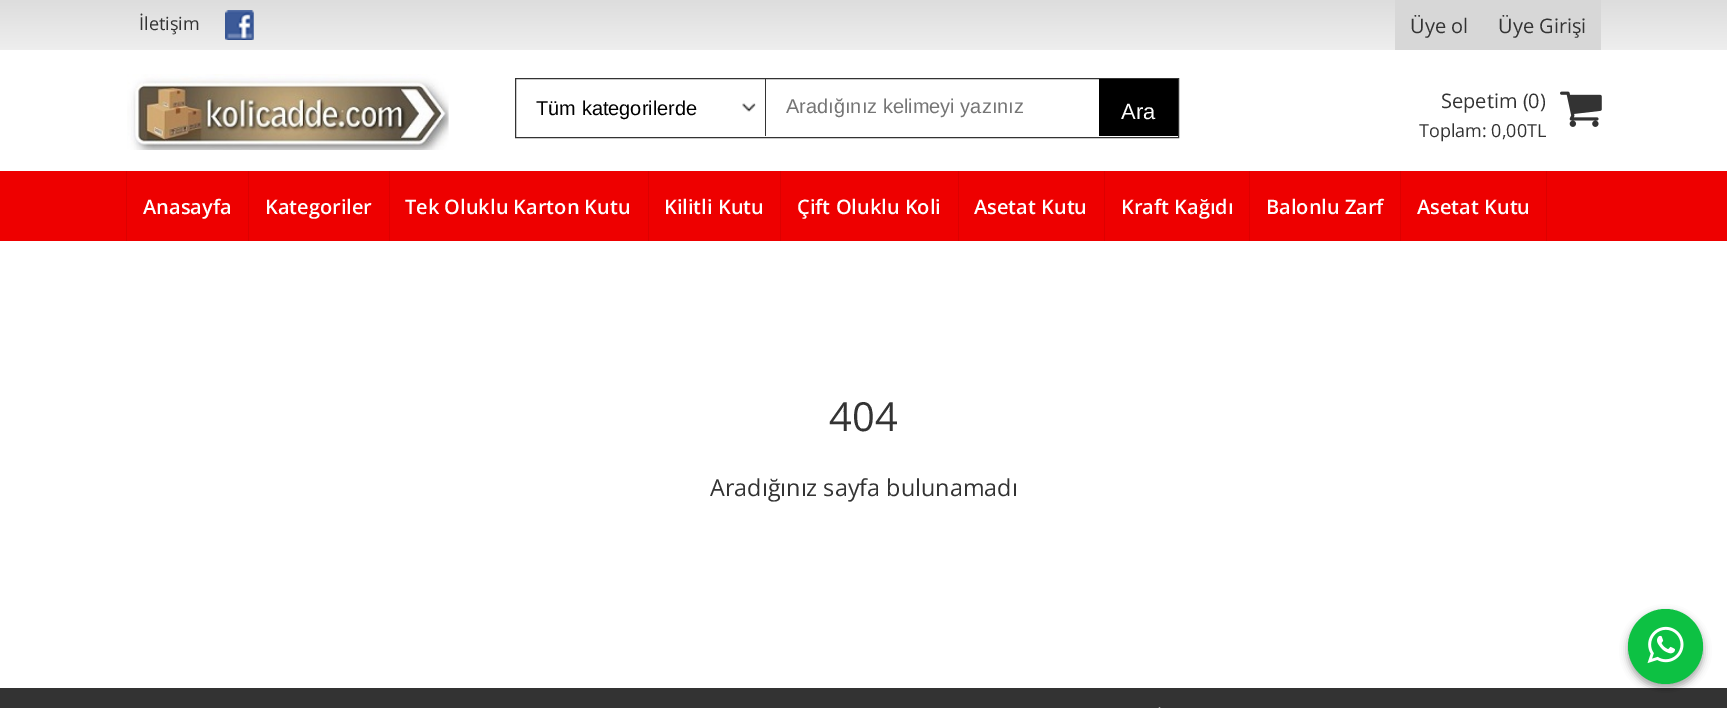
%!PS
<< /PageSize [1727 708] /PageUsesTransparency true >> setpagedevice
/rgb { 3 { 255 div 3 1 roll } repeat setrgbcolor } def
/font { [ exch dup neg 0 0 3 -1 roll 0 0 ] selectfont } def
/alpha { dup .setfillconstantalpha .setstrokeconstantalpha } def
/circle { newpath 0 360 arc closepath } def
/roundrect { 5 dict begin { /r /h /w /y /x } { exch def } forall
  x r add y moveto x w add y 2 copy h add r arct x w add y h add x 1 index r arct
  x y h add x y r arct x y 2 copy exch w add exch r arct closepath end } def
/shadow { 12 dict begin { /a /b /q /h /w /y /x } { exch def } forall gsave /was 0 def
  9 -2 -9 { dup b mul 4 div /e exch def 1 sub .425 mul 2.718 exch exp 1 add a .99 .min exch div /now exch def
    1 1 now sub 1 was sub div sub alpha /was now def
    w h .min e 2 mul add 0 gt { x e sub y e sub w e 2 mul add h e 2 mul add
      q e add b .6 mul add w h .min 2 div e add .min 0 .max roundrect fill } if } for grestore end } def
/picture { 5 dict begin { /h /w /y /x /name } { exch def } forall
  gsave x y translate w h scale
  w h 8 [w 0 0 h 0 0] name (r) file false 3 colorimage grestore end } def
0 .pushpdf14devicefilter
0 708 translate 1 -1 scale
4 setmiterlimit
255 255 255 rgb
0 0 1727 708 rectfill
gsave 0 0 moveto 1727 0 lineto 1727 50 lineto 0 50 lineto closepath clip newpath
<< /ShadingType 2 /ColorSpace /DeviceRGB /Coords [864 0 864 50] /Extend [true true] /Function << /FunctionType 2 /Domain [0 1] /C0 [0.867 0.867 0.867] /C1 [0.933 0.933 0.933] /N 1 >> >> shfill grestore
(img/1.rgb) 225 10 29 30 picture
215 215 215 rgb
1395 0 206 50 rectfill
(img/2.rgb) 127 74 322 76 picture
51 51 51 rgb
515.5 78.5 663 59 rectstroke
(img/3.rgb) 742 103 14 9 picture
765 79 1 57 rectfill
0 0 0 rgb
1099 79 79 57 rectfill
(img/4.rgb) 1560 91 42 36 picture
[
  [0 171 1727 70 238 0 0]
  [126 171 1 70 221 0 0]
  [248 171 1 70 221 0 0]
  [389 171 1 70 221 0 0]
  [648 171 1 70 221 0 0]
  [780 171 1 70 221 0 0]
  [958 171 1 70 221 0 0]
  [1104 171 1 70 221 0 0]
  [1249 171 1 70 221 0 0]
  [1546 171 1 70 221 0 0]
  [1400 171 1 70 221 0 0]
  [0 688 1727 20 51 51 51]
] { aload pop rgb rectfill } forall
0 0 0 rgb
1628 613 75 75 37.5 4 0.23 shadow
1628 613 75 75 37.5 4 0.16 shadow
13 193 67 rgb
1665.5 646.5 37.5 circle fill
(img/5.rgb) 1647 626 37 38 picture
255 255 255 rgb
1.2 setlinewidth
[1.25 1.25] 0 setdash
1159.5 707.5 moveto 1159.5 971 lineto stroke
/OpenSans-Regular 18 font
51 51 51 rgb
139 30 moveto (İletişim) show
/OpenSans-Regular 20 font
1410 33 moveto (Üye ol) show
1498 33 moveto (Üye Girişi) show
/LiberationSans-Regular 20 font
0 0 0 rgb
536 115 moveto (Tüm kategorilerde) show
117 117 117 rgb
786 113 moveto (Aradığınız kelimeyi yazınız) show
/LiberationSans-Regular 22 font
255 255 255 rgb
1121 119 moveto (Ara) show
/OpenSans-Regular 20 font
51 51 51 rgb
1441 108 moveto (Sepetim \(0\)) show
/OpenSans-Regular 18 font
1419 137 moveto (Toplam: 0,00TL) show
/OpenSans-SemiBold 20 font
255 255 255 rgb
[
  [(Anasayfa) 143 214]
  [(Kategoriler) 265 214]
  [(Tek Oluklu Karton Kutu) 405 214]
  [(Kilitli Kutu) 664 214]
  [(Çift Oluklu Koli) 797 214]
  [(Asetat Kutu) 974 214]
  [(Kraft Kağıdı) 1121 214]
  [(Balonlu Zarf) 1266 214]
  [(Asetat Kutu) 1417 214]
] { aload pop moveto show } forall
/OpenSans-Regular 40 font
51 51 51 rgb
829 431 moveto (404) show
/OpenSans-Regular 23.4 font
710 496 moveto (Aradığınız sayfa bulunamadı) show
.poppdf14devicefilter showpage
